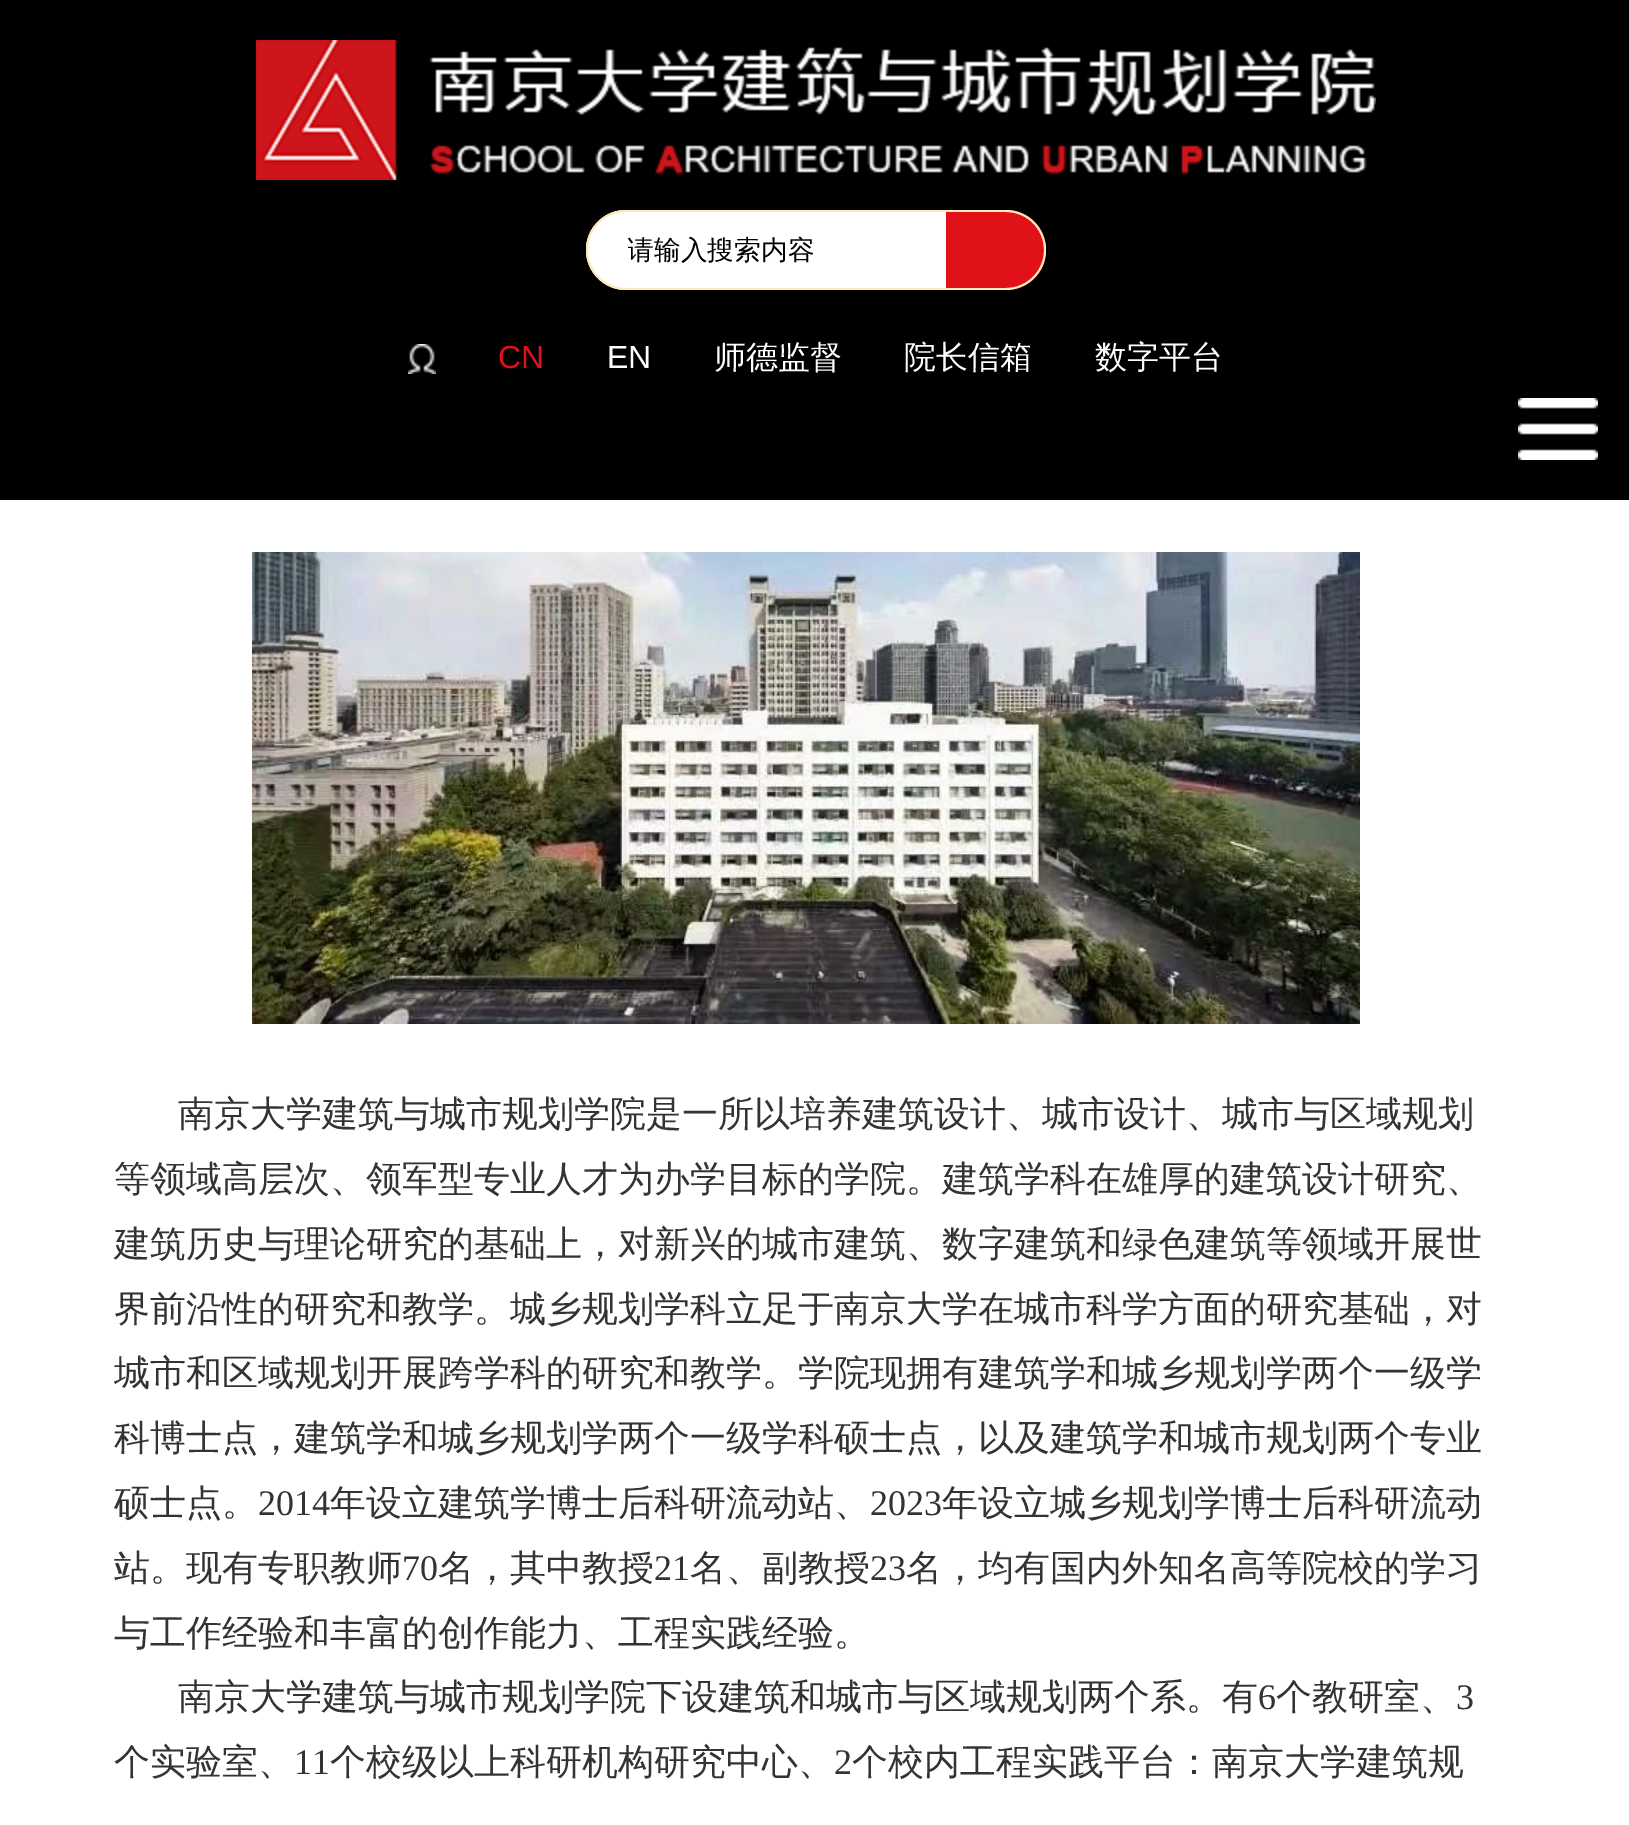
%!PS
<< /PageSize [1629 1825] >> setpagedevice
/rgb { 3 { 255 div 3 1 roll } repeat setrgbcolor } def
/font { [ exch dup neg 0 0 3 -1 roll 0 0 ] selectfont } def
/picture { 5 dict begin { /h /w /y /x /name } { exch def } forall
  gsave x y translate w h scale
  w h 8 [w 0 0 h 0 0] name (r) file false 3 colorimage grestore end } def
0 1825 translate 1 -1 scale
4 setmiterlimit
255 255 255 rgb
0 0 1629 1825 rectfill
0 0 0 rgb
0 0 1629 500 rectfill
(img/1.rgb) 256 40 1120 140 picture
255 255 255 rgb
626 210 moveto 946 210 lineto 946 290 lineto 626 290 lineto 604 290 586 272 586 250 curveto 586 228 604 210 626 210 curveto closepath fill
255 233 187 rgb
626 210 moveto 946 210 lineto 946 290 lineto 626 290 lineto 604 290 586 272 586 250 curveto 586 228 604 210 626 210 curveto closepath 626 212 moveto 946 212 lineto 946 288 lineto 626 288 lineto 605 288 588 271 588 250 curveto 588 229 605 212 626 212 curveto closepath eofill
225 17 25 rgb
946 210 moveto 1006 210 lineto 1028 210 1046 228 1046 250 curveto 1046 272 1028 290 1006 290 curveto 946 290 lineto closepath fill
255 233 187 rgb
946 210 moveto 1006 210 lineto 1028 210 1046 228 1046 250 curveto 1046 272 1028 290 1006 290 curveto 946 290 lineto closepath 946 212 moveto 1006 212 lineto 1027 212 1044 229 1044 250 curveto 1044 271 1027 288 1006 288 curveto 946 288 lineto closepath eofill
(img/2.rgb) 408 344 28 30 picture
(img/3.rgb) 1518 398 80 62 picture
(img/4.rgb) 252 552 1108 472 picture
gsave
628 234 318 36 rectclip
/WenQuanYiZenHei-Medium 26.75 font
0 0 0 rgb
627 259 moveto (请输入搜索内容) show
grestore
/LiberationSans-Regular 32 font
225 17 25 rgb
498 368 moveto (CN) show
255 255 255 rgb
607 368 moveto (EN) show
/WenQuanYiZenHei-Medium 32 font
[
  [(师德监督) 714 368]
  [(院长信箱) 904 368]
  [(数字平台) 1095 368]
] { aload pop moveto show } forall
/WenQuanYiZenHei-Medium 36 font
51 51 51 rgb
[
  [(南京大学建筑与城市规划学院是一所以培养建筑设计、城市设计、城市与区域规划) 178 1126]
  [(等领域高层次、领军型专业人才为办学目标的学院。建筑学科在雄厚的建筑设计研究、) 114 1191]
  [(建筑历史与理论研究的基础上，对新兴的城市建筑、数字建筑和绿色建筑等领域开展世) 114 1256]
  [(界前沿性的研究和教学。城乡规划学科立足于南京大学在城市科学方面的研究基础，对) 114 1321]
  [(城市和区域规划开展跨学科的研究和教学。学院现拥有建筑学和城乡规划学两个一级学) 114 1385]
  [(科博士点，建筑学和城乡规划学两个一级学科硕士点，以及建筑学和城市规划两个专业) 114 1450]
  [(硕士点。) 114 1515]
] { aload pop moveto show } forall
/LiberationSerif-Regular 36 font
258 1515 moveto (2014) show
/WenQuanYiZenHei-Medium 36 font
330 1515 moveto (年设立建筑学博士后科研流动站、) show
/LiberationSerif-Regular 36 font
870 1515 moveto (2023) show
/WenQuanYiZenHei-Medium 36 font
942 1515 moveto (年设立城乡规划学博士后科研流动) show
114 1580 moveto (站。现有专职教师) show
/LiberationSerif-Regular 36 font
402 1580 moveto (70) show
/WenQuanYiZenHei-Medium 36 font
438 1580 moveto (名，其中教授) show
/LiberationSerif-Regular 36 font
654 1580 moveto (21) show
/WenQuanYiZenHei-Medium 36 font
690 1580 moveto (名、副教授) show
/LiberationSerif-Regular 36 font
870 1580 moveto (23) show
/WenQuanYiZenHei-Medium 36 font
[
  [(名，均有国内外知名高等院校的学习) 906 1580]
  [(与工作经验和丰富的创作能力、工程实践经验。) 114 1645]
  [(南京大学建筑与城市规划学院下设建筑和城市与区域规划两个系。有) 178 1709]
] { aload pop moveto show } forall
/LiberationSerif-Regular 36 font
1258 1709 moveto (6) show
/WenQuanYiZenHei-Medium 36 font
1276 1709 moveto (个教研室、) show
/LiberationSerif-Regular 36 font
1456 1709 moveto (3) show
/WenQuanYiZenHei-Medium 36 font
114 1774 moveto (个实验室、) show
/LiberationSerif-Regular 36 font
294 1774 moveto (11) show
/WenQuanYiZenHei-Medium 36 font
330 1774 moveto (个校级以上科研机构研究中心、) show
/LiberationSerif-Regular 36 font
834 1774 moveto (2) show
/WenQuanYiZenHei-Medium 36 font
852 1774 moveto (个校内工程实践平台：南京大学建筑规) show
showpage
